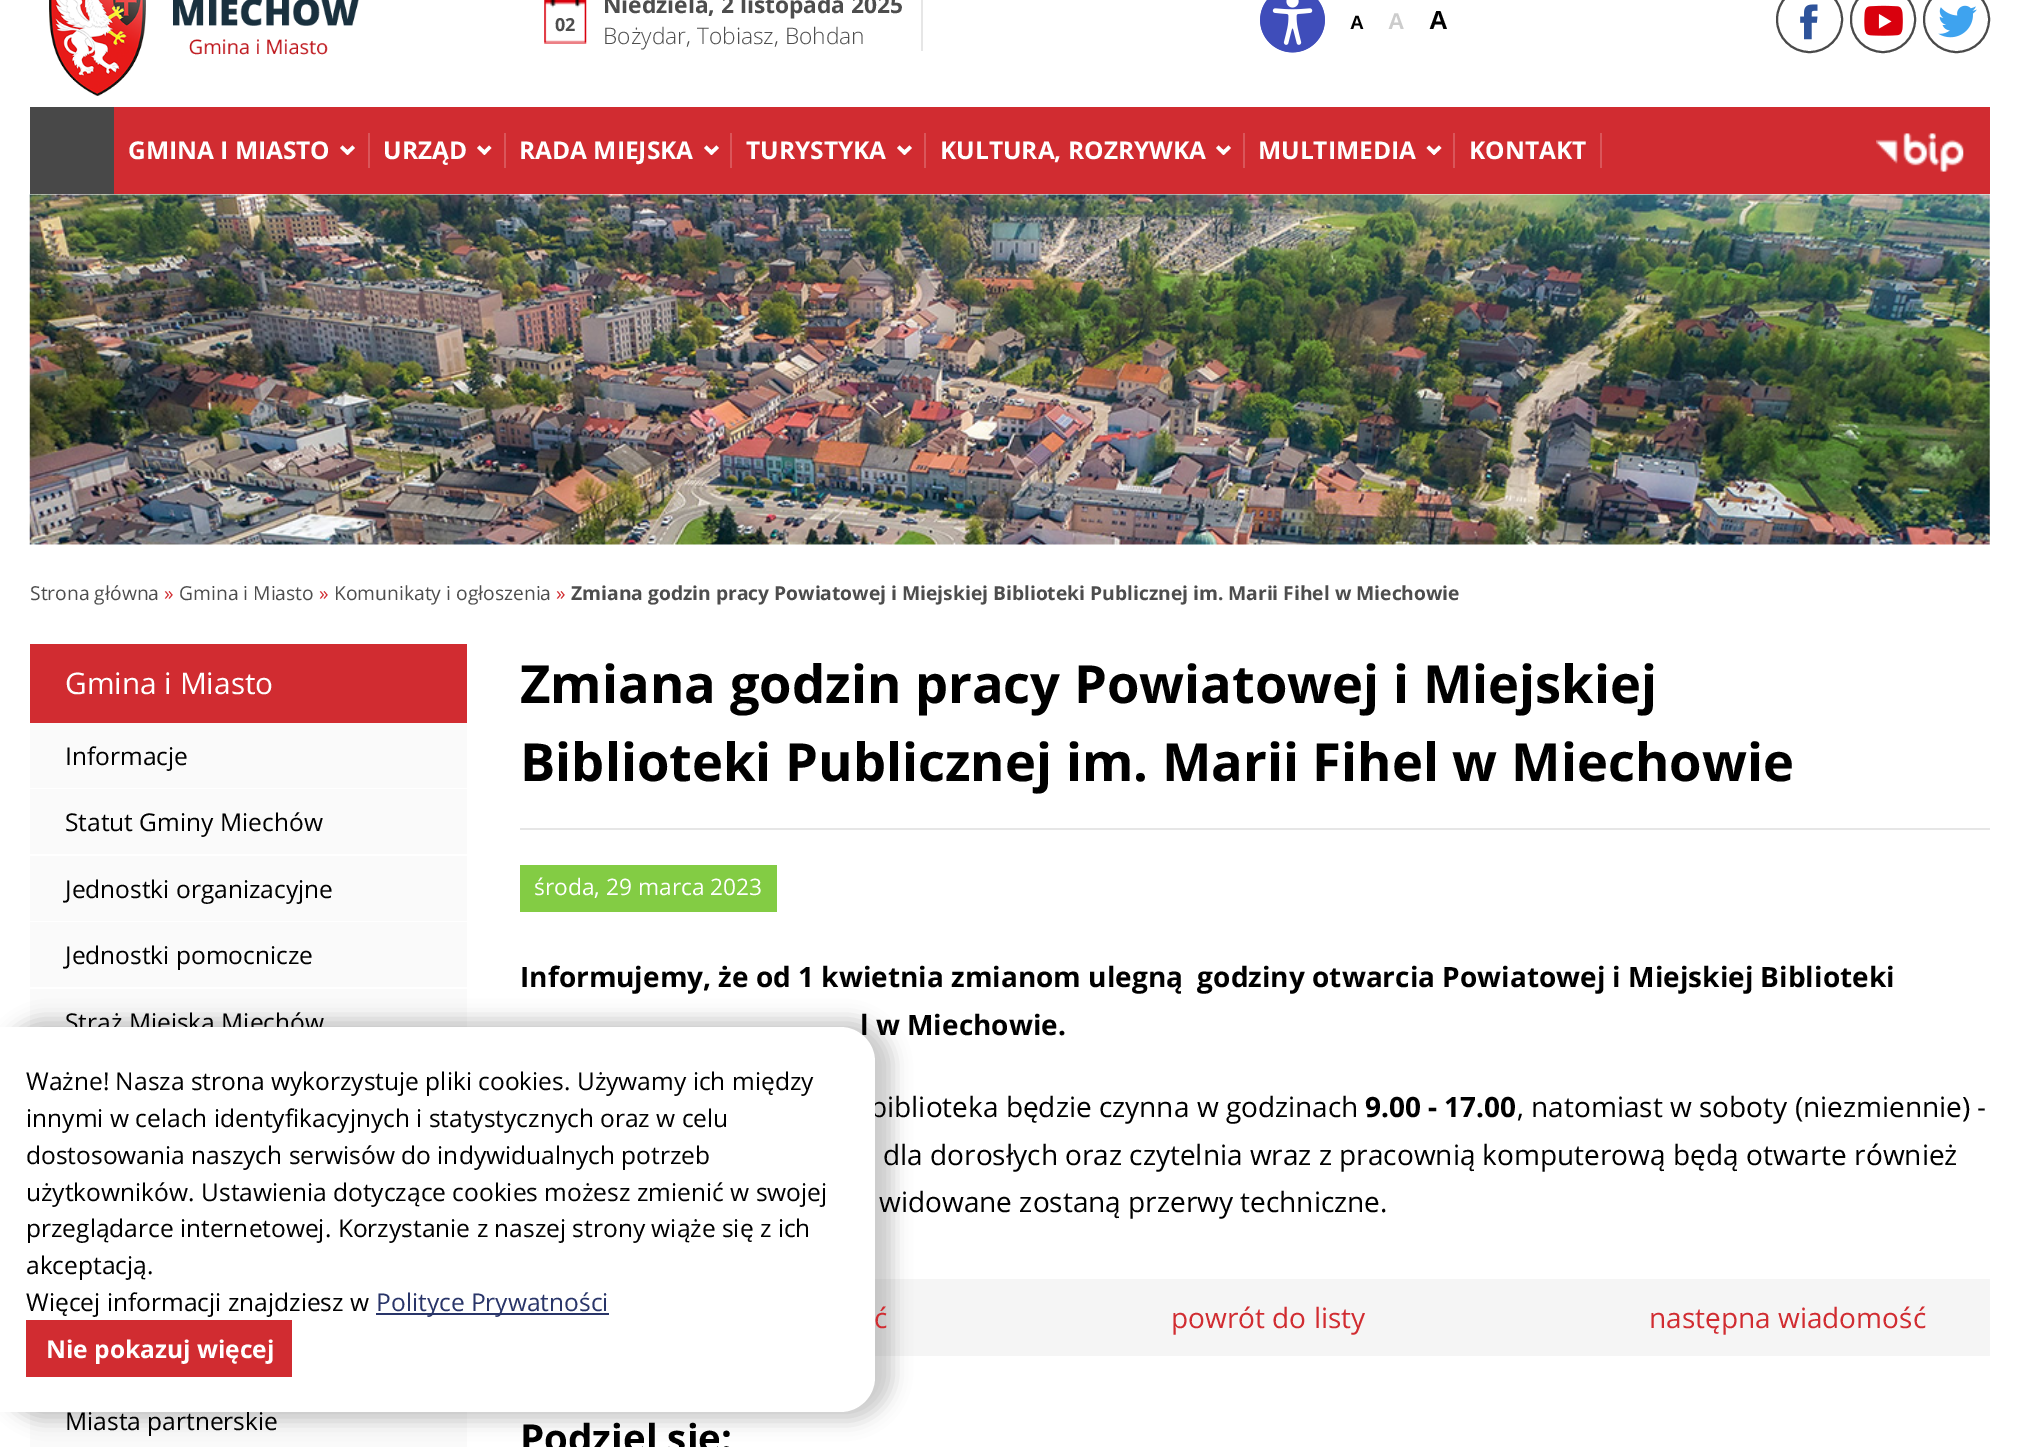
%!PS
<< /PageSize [2019 1447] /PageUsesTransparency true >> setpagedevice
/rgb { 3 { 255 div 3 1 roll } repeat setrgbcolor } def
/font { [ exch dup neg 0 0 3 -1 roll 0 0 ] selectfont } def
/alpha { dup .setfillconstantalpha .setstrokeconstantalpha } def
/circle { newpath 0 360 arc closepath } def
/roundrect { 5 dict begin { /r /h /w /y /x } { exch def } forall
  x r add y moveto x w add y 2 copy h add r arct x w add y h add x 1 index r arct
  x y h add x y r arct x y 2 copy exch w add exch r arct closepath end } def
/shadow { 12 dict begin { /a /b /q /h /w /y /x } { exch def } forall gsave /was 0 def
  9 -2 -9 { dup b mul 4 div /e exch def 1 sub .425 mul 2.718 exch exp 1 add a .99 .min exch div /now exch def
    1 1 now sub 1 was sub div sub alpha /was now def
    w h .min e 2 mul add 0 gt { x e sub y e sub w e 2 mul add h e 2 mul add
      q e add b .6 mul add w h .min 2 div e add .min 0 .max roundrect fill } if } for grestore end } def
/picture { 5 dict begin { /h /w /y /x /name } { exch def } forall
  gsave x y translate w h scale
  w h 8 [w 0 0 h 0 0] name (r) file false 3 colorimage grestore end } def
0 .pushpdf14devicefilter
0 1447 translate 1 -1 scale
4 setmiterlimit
255 255 255 rgb
0 0 2019 1447 rectfill
(img/1.rgb) 49 0 310 96 picture
230 230 230 rgb
921 0 2 51 rectfill
(img/2.rgb) 544 0 43 44 picture
(img/3.rgb) 1260 0 65 53 picture
74 74 74 rgb
2 setlinewidth
1809.5 19.5 32.5 circle stroke
(img/4.rgb) 1800 4 18 36 picture
1851 -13 64 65 32 roundrect stroke
(img/5.rgb) 1864 5 39 31 picture
1956.5 19.5 32.5 circle stroke
(img/6.rgb) 1938 5 39 33 picture
209 44 49 rgb
114 107 1876 87 rectfill
72 72 72 rgb
30 107 84 87 rectfill
255 255 255 rgb
345 152.5 moveto 352.5 145.5 lineto 355 148 lineto 347.5 155 lineto closepath fill
340 148 moveto 342.5 145.5 lineto 350 152.5 lineto 347.5 155 lineto closepath fill
218 86 90 rgb
368 133 2 35 rectfill
255 255 255 rgb
482 152.5 moveto 489 145.5 lineto 491.5 148 lineto 484.5 155 lineto closepath fill
477 148 moveto 479.5 145.5 lineto 487 152.5 lineto 484.5 155 lineto closepath fill
218 86 90 rgb
504 133 2 35 rectfill
255 255 255 rgb
709 152.5 moveto 716.5 145.5 lineto 719 148 lineto 711.5 155 lineto closepath fill
704 148 moveto 706.5 145.5 lineto 714 152.5 lineto 711.5 155 lineto closepath fill
218 86 90 rgb
730 133 2 35 rectfill
255 255 255 rgb
902 152.5 moveto 909.5 145.5 lineto 912 148 lineto 904.5 155 lineto closepath fill
897 148 moveto 899.5 145.5 lineto 907 152.5 lineto 904.5 155 lineto closepath fill
218 86 90 rgb
924 133 2 35 rectfill
255 255 255 rgb
1221 152.5 moveto 1228.5 145.5 lineto 1231 148 lineto 1223.5 155 lineto closepath fill
1216 148 moveto 1218.5 145.5 lineto 1226 152.5 lineto 1223.5 155 lineto closepath fill
218 86 90 rgb
1243 133 2 35 rectfill
255 255 255 rgb
1431.5 152.5 moveto 1439 145.5 lineto 1441.5 148 lineto 1434 155 lineto closepath fill
1426.5 148 moveto 1429 145.5 lineto 1436.5 152.5 lineto 1434 155 lineto closepath fill
218 86 90 rgb
1453 133 2 35 rectfill
1600 133 2 35 rectfill
(img/7.rgb) 1876 133 88 39 picture
(img/8.rgb) 29 194 1961 351 picture
[
  [30 644 437 79 209 44 49]
  [30 723 437 65 250 250 250]
  [30 789 437 65 250 250 250]
  [30 856 437 65 250 250 250]
  [30 922 437 65 250 250 250]
  [30 989 437 38 250 250 250]
  [30 1412 437 35 250 250 250]
  [520 828 1470 2 230 230 230]
  [520 865 257 47 131 204 68]
  [875 1279 1115 77 245 245 245]
] { aload pop rgb rectfill } forall
0 0 0 rgb
0 1019 893 402 44 9 0.2 shadow
/OpenSans-Bold 18 font
77 77 77 rgb
555 31 moveto (02) show
/OpenSans-Bold 22.75 font
603 13 moveto (Niedziela, 2 listopada 2025) show
/OpenSans-Light 22.75 font
603 44 moveto (Bożydar, Tobiasz, Bohdan) show
/LiberationSans-Bold 19.25 font
0 0 0 rgb
1350 29 moveto (A) show
/LiberationSans-Bold 22.75 font
204 204 204 rgb
1388 29 moveto (A) show
/LiberationSans-Bold 26 font
0 0 0 rgb
1429 29 moveto (A) show
/OpenSans-Bold 24.5 font
255 255 255 rgb
[
  [(GMINA I MIASTO) 128 159]
  [(URZĄD) 383 159]
  [(RADA MIEJSKA) 519 159]
  [(TURYSTYKA) 746 159]
  [(KULTURA, ROZRYWKA) 940 159]
  [(MULTIMEDIA) 1258 159]
  [(KONTAKT) 1469 159]
] { aload pop moveto show } forall
/OpenSans-Regular 19.25 font
77 77 77 rgb
30 600 moveto (Strona główna) show
209 44 49 rgb
164 600 moveto (») show
77 77 77 rgb
179 600 moveto (Gmina i Miasto) show
209 44 49 rgb
319 600 moveto (») show
77 77 77 rgb
334 600 moveto (Komunikaty i ogłoszenia) show
209 44 49 rgb
556 600 moveto (») show
/OpenSans-Bold 19.25 font
77 77 77 rgb
571 600 moveto (Zmiana godzin pracy Powiatowej i Miejskiej Biblioteki Publicznej im. Marii Fihel w Miechowie) show
/OpenSans-Regular 29.75 font
255 255 255 rgb
65 694 moveto (Gmina i Miasto) show
/OpenSans-Regular 24.5 font
0 0 0 rgb
[
  [(Informacje) 65 765]
  [(Statut Gminy Miechów) 65 831]
  [(Jednostki organizacyjne) 65 898]
  [(Jednostki pomocnicze) 65 964]
  [(Straż Miejska Miechów) 65 1031]
  [(Miasta partnerskie) 65 1430]
] { aload pop moveto show } forall
/OpenSans-Bold 52.5 font
520 703 moveto (Zmiana godzin pracy Powiatowej i Miejskiej) show
520 781 moveto (Biblioteki Publicznej im. Marii Fihel w Miechowie) show
/OpenSans-Regular 22.75 font
255 255 255 rgb
534 895 moveto (środa, 29 marca 2023) show
/OpenSans-Bold 28 font
0 0 0 rgb
520 987 moveto (Informujemy, że od 1 kwietnia zmianom ulegną  godziny otwarcia Powiatowej i Miejskiej Biblioteki) show
860 1035 moveto (l w Miechowie.) show
/OpenSans-Regular 28 font
870 1117 moveto (biblioteka będzie czynna w godzinach) show
/OpenSans-Bold 28 font
1365 1117 moveto (9.00 - 17.00) show
/OpenSans-Regular 28 font
[
  [(, natomiast w soboty \(niezmiennie\) -) 1517 1117]
  [(dla dorosłych oraz czytelnia wraz z pracownią komputerową będą otwarte również) 883 1165]
  [(widowane zostaną przerwy techniczne.) 879 1212]
] { aload pop moveto show } forall
209 44 49 rgb
[
  [(ć) 874 1328]
  [(powrót do listy) 1171 1328]
  [(następna wiadomość) 1649 1328]
] { aload pop moveto show } forall
/OpenSans-Bold 38.5 font
0 0 0 rgb
520 1452 moveto (Podziel się:) show
255 255 255 rgb
0 1027 moveto 840 1027 lineto 859.5 1027 875 1042.5 875 1062 curveto 875 1377 lineto 875 1396.5 859.5 1412 840 1412 curveto 0 1412 lineto closepath fill
/OpenSans-Regular 24.5 font
0 0 0 rgb
[
  [(Ważne! Nasza strona wykorzystuje pliki cookies. Używamy ich między) 26 1090]
  [(innymi w celach identyfikacyjnych i statystycznych oraz w celu) 26 1127]
  [(dostosowania naszych serwisów do indywidualnych potrzeb) 26 1164]
  [(użytkowników. Ustawienia dotyczące cookies możesz zmienić w swojej) 26 1201]
  [(przeglądarce internetowej. Korzystanie z naszej strony wiąże się z ich) 26 1237]
  [(akceptacją.) 26 1274]
  [(Więcej informacji znajdziesz w) 26 1311]
] { aload pop moveto show } forall
41 53 105 rgb
376 1313 233 2 rectfill
376 1311 moveto (Polityce Prywatności) show
209 44 49 rgb
26 1320 266 57 rectfill
/OpenSans-Bold 24.5 font
255 255 255 rgb
46 1358 moveto (Nie pokazuj więcej) show
.poppdf14devicefilter showpage
